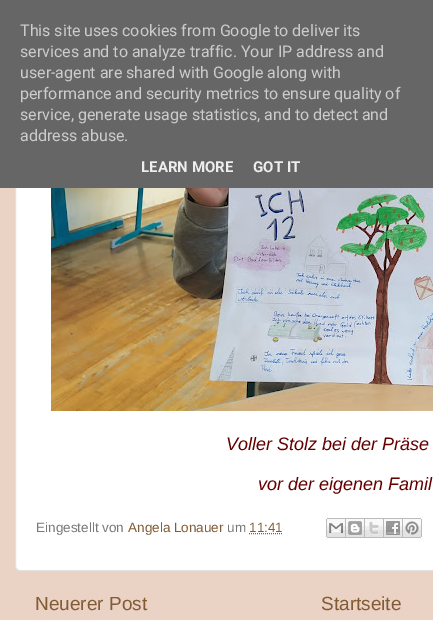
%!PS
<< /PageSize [433 620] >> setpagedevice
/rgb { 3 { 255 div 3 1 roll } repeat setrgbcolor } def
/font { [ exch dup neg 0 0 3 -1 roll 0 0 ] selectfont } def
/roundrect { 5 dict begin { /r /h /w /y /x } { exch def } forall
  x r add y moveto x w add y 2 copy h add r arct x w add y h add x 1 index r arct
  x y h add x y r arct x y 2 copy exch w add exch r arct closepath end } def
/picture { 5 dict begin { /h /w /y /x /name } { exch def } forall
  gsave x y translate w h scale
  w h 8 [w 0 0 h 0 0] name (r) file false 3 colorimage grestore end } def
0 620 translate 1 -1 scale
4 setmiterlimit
234 210 197 rgb
0 0 433 620 rectfill
255 255 255 rgb
15.5 -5.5 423 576 4.5 roundrect gsave fill grestore
225 225 225 rgb
stroke
102 102 102 rgb
0 0 433 188 rectfill
(img/1.rgb) 51 188 382 223 picture
131 91 53 rgb
[1 1] 0 setdash
249 533.5 moveto 283 533.5 lineto stroke
(img/2.rgb) 326 518 20 20 picture
(img/3.rgb) 346 518 19 20 picture
(img/4.rgb) 365 518 19 20 picture
(img/5.rgb) 384 518 19 20 picture
(img/6.rgb) 403 518 19 20 picture
/Roboto-Regular 16 font
204 204 204 rgb
[
  [(This site uses cookies from Google to deliver its) 20 36]
  [(services and to analyze traffic. Your IP address and) 20 57]
  [(user-agent are shared with Google along with) 20 78]
  [(performance and security metrics to ensure quality of) 20 99]
  [(service, generate usage statistics, and to detect and) 20 120]
  [(address abuse.) 20 141]
] { aload pop moveto show } forall
/Roboto-Bold 15 font
238 238 238 rgb
141 172 moveto (LEARN MORE) show
253 172 moveto (GOT IT) show
/LiberationSans-Italic 18 font
102 0 0 rgb
226 450 moveto (Voller Stolz bei der Präse) show
258 490 moveto (vor der eigenen Famil) show
/LiberationSans-Regular 13.5 font
121 120 120 rgb
36 532 moveto (Eingestellt von) show
131 91 53 rgb
128 532 moveto (Angela Lonauer) show
121 120 120 rgb
227 532 moveto (um) show
131 91 53 rgb
249 532 moveto (11:41) show
/LiberationSans-Regular 19 font
35 610 moveto (Neuerer Post) show
321 610 moveto (Startseite) show
showpage
